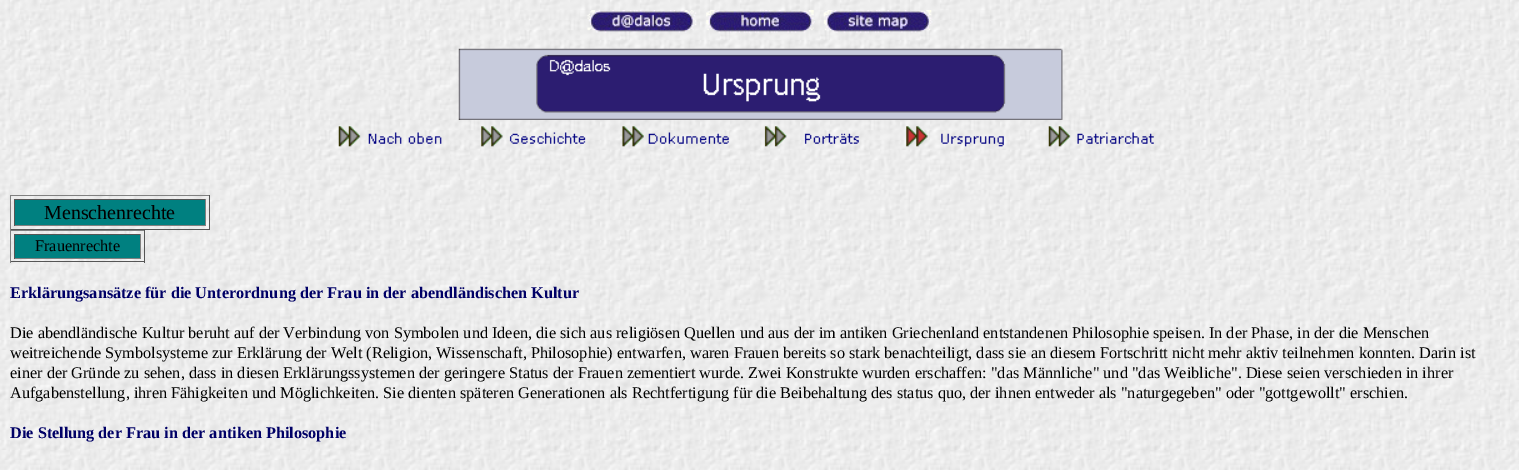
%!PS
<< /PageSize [1519 470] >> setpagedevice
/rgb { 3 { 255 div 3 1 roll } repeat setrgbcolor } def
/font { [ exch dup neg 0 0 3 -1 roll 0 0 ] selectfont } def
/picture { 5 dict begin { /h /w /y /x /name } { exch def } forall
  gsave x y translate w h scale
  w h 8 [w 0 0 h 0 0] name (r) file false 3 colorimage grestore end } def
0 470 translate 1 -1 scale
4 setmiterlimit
255 255 255 rgb
0 0 1519 470 rectfill
(img/1.rgb) 0 0 1519 470 picture
(img/2.rgb) 587 10 110 23 picture
(img/3.rgb) 706 10 109 23 picture
(img/4.rgb) 823 10 110 23 picture
(img/5.rgb) 458 48 605 72 picture
(img/6.rgb) 338 126 104 21 picture
(img/7.rgb) 481 126 105 21 picture
(img/8.rgb) 622 126 107 21 picture
(img/9.rgb) 764 126 95 21 picture
(img/10.rgb) 906 126 98 21 picture
(img/11.rgb) 1048 126 106 21 picture
[
  [10 195 200 1 128 128 128]
  [209 195 1 35 85 85 85]
  [10 229 200 1 85 85 85]
  [10 195 1 35 128 128 128]
  [15 200 190 25 0 128 128]
  [14 199 192 1 85 85 85]
  [205 199 1 27 128 128 128]
  [14 225 192 1 128 128 128]
  [14 199 1 27 85 85 85]
  [10 230 135 1 128 128 128]
  [144 230 1 33 85 85 85]
  [10 261 135 1 85 85 85]
  [10 230 1 33 128 128 128]
  [15 235 125 23 0 128 128]
  [14 234 127 1 85 85 85]
  [140 234 1 25 128 128 128]
  [14 258 127 1 128 128 128]
  [14 234 1 25 85 85 85]
] { aload pop rgb rectfill } forall
/LiberationSerif-Regular 20 font
0 0 0 rgb
44 219 moveto (Menschenrechte) show
/LiberationSerif-Regular 16.25 font
35 251 moveto (Frauenrechte) show
/LiberationSerif-Bold 16.25 font
0 0 102 rgb
10 298 moveto (Erklärungsansätze für die Unterordnung der Frau in der abendländischen Kultur) show
/LiberationSerif-Regular 16.25 font
0 0 0 rgb
[
  [(Die abendländische Kultur beruht auf der Verbindung von Symbolen und Ideen, die sich aus religiösen Quellen und aus der im antiken Griechenland entstandenen Philosophie speisen. In der Phase, in der die Menschen) 10 338]
  [(weitreichende Symbolsysteme zur Erklärung der Welt \(Religion, Wissenschaft, Philosophie\) entwarfen, waren Frauen bereits so stark benachteiligt, dass sie an diesem Fortschritt nicht mehr aktiv teilnehmen konnten. Darin ist) 10 358]
  [(einer der Gründe zu sehen, dass in diesen Erklärungssystemen der geringere Status der Frauen zementiert wurde. Zwei Konstrukte wurden erschaffen: "das Männliche" und "das Weibliche". Diese seien verschieden in ihrer) 10 378]
  [(Aufgabenstellung, ihren Fähigkeiten und Möglichkeiten. Sie dienten späteren Generationen als Rechtfertigung für die Beibehaltung des status quo, der ihnen entweder als "naturgegeben" oder "gottgewollt" erschien.) 10 398]
] { aload pop moveto show } forall
/LiberationSerif-Bold 16.25 font
0 0 102 rgb
10 438 moveto (Die Stellung der Frau in der antiken Philosophie) show
showpage
